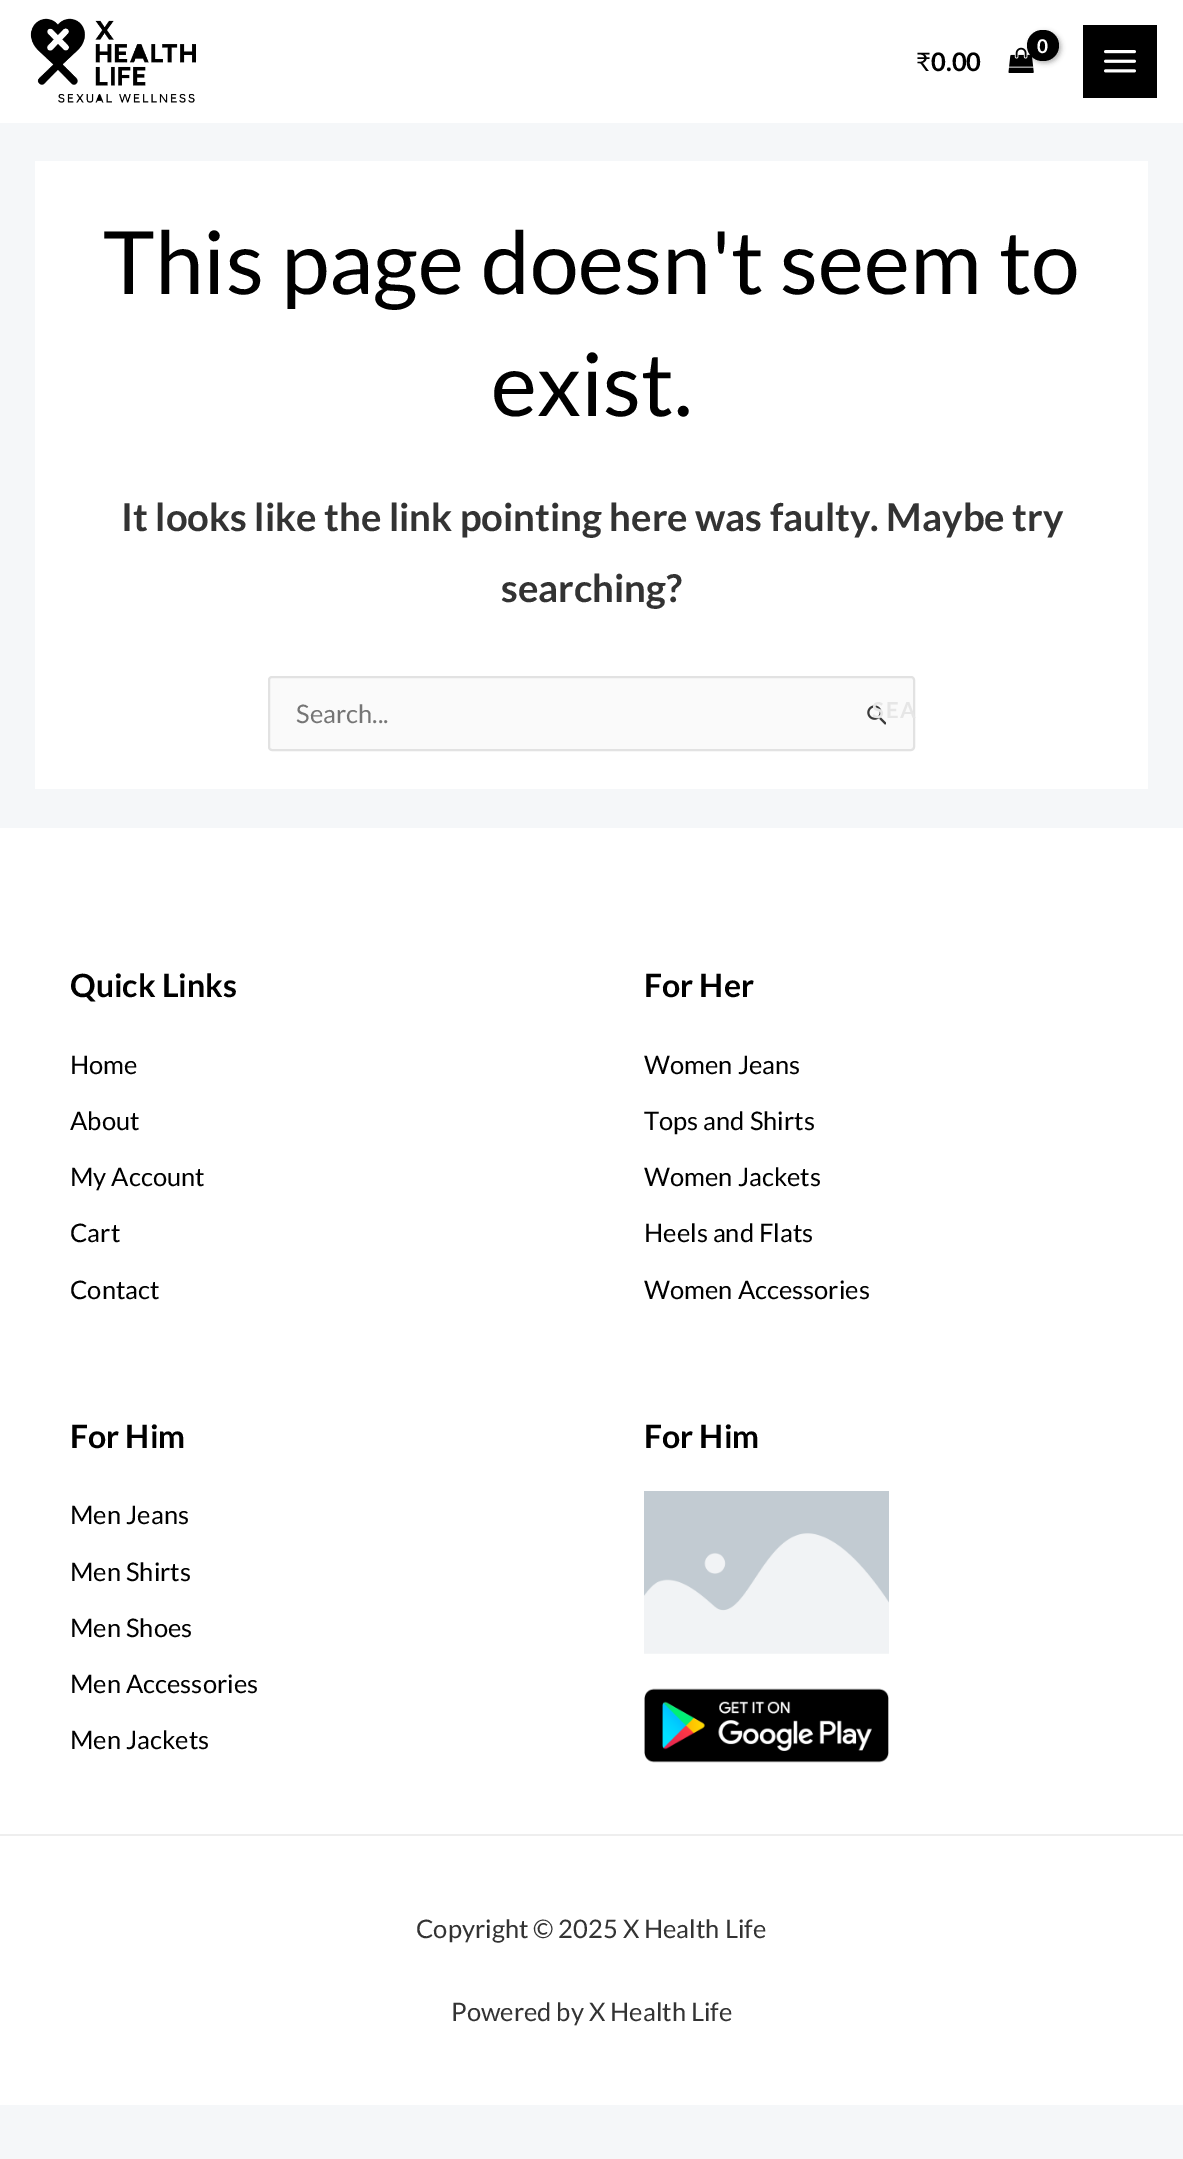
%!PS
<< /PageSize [1183 2159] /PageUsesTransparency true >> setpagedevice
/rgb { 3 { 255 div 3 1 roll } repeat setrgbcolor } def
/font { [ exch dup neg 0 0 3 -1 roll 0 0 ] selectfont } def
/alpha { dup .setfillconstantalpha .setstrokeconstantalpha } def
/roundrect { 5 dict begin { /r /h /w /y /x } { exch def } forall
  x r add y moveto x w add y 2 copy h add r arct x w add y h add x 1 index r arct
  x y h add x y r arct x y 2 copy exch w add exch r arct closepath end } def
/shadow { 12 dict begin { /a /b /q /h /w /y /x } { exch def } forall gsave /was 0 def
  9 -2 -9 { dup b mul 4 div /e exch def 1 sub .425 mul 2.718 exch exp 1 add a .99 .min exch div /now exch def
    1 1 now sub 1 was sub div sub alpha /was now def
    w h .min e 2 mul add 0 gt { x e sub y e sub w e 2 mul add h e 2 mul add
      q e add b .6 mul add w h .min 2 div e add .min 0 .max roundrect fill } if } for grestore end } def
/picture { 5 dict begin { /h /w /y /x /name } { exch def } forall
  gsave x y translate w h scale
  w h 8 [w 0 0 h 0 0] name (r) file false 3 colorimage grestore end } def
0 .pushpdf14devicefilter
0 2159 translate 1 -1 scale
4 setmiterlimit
245 247 249 rgb
0 0 1183 2159 rectfill
255 255 255 rgb
0 0 1183 123 rectfill
(img/1.rgb) 30 18 166 85 picture
(img/2.rgb) 1008 47 26 26 picture
0 0 0 rgb
1029 32 32 31 15.5 2.5 0.3 shadow
1027 30 32 31 15.5 roundrect fill
1083 25 74 73 rectfill
(img/3.rgb) 1104 50 32 23 picture
255 255 255 rgb
35 161 1113 628 rectfill
250 250 250 rgb
269 677 645 73 3 roundrect gsave fill grestore
226 226 226 rgb
2 setlinewidth
stroke
(img/4.rgb) 867 705 19 20 picture
255 255 255 rgb
0 828 1183 1006 rectfill
(img/5.rgb) 644 1491 245 163 picture
(img/6.rgb) 644 1688 245 75 picture
0 1836 1183 269 rectfill
238 238 238 rgb
0 1834 1183 2 rectfill
/Lato-Bold 19 font
255 255 255 rgb
1037 53 moveto -1 0 (0) ashow
/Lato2-Regular 25.5 font
0 0 0 rgb
916 71 moveto (₹) show
/Lato-Bold 25.5 font
931 71 moveto (0.00) show
/Lato-Regular 87.5 font
103 294 moveto (This page doesn't seem to) show
491 416 moveto (exist.) show
/Lato-Bold 38.3 font
51 51 51 rgb
121 531 moveto (It looks like the link pointing here was faulty. Maybe try) show
501 602 moveto (searching?) show
/Lato-Regular 25.5 font
117 117 117 rgb
296 723 moveto (Search...) show
/Lato-Bold 22 font
230 230 230 rgb
872 718 moveto 2 0 (SEA) ashow
/Lato-Bold 32 font
0 0 0 rgb
70 997 moveto (Quick Links) show
/Lato-Regular 25.5 font
[
  [(Home) 70 1074]
  [(About) 70 1130]
  [(My Account) 70 1186]
  [(Cart) 70 1242]
  [(Contact) 70 1299]
] { aload pop moveto show } forall
/Lato-Bold 32 font
644 997 moveto (For Her) show
/Lato-Regular 25.5 font
[
  [(Women Jeans) 644 1074]
  [(Tops and Shirts) 644 1130]
  [(Women Jackets) 644 1186]
  [(Heels and Flats) 644 1242]
  [(Women Accessories) 644 1299]
] { aload pop moveto show } forall
/Lato-Bold 32 font
70 1448 moveto (For Him) show
/Lato-Regular 25.5 font
[
  [(Men Jeans) 70 1524]
  [(Men Shirts) 70 1581]
  [(Men Shoes) 70 1637]
  [(Men Accessories) 70 1693]
  [(Men Jackets) 70 1749]
] { aload pop moveto show } forall
/Lato-Bold 32 font
644 1448 moveto (For Him) show
/Lato-Regular 25.5 font
51 51 51 rgb
416 1938 moveto (Copyright © 2025 X Health Life) show
451 2021 moveto (Powered by X Health Life) show
.poppdf14devicefilter showpage
